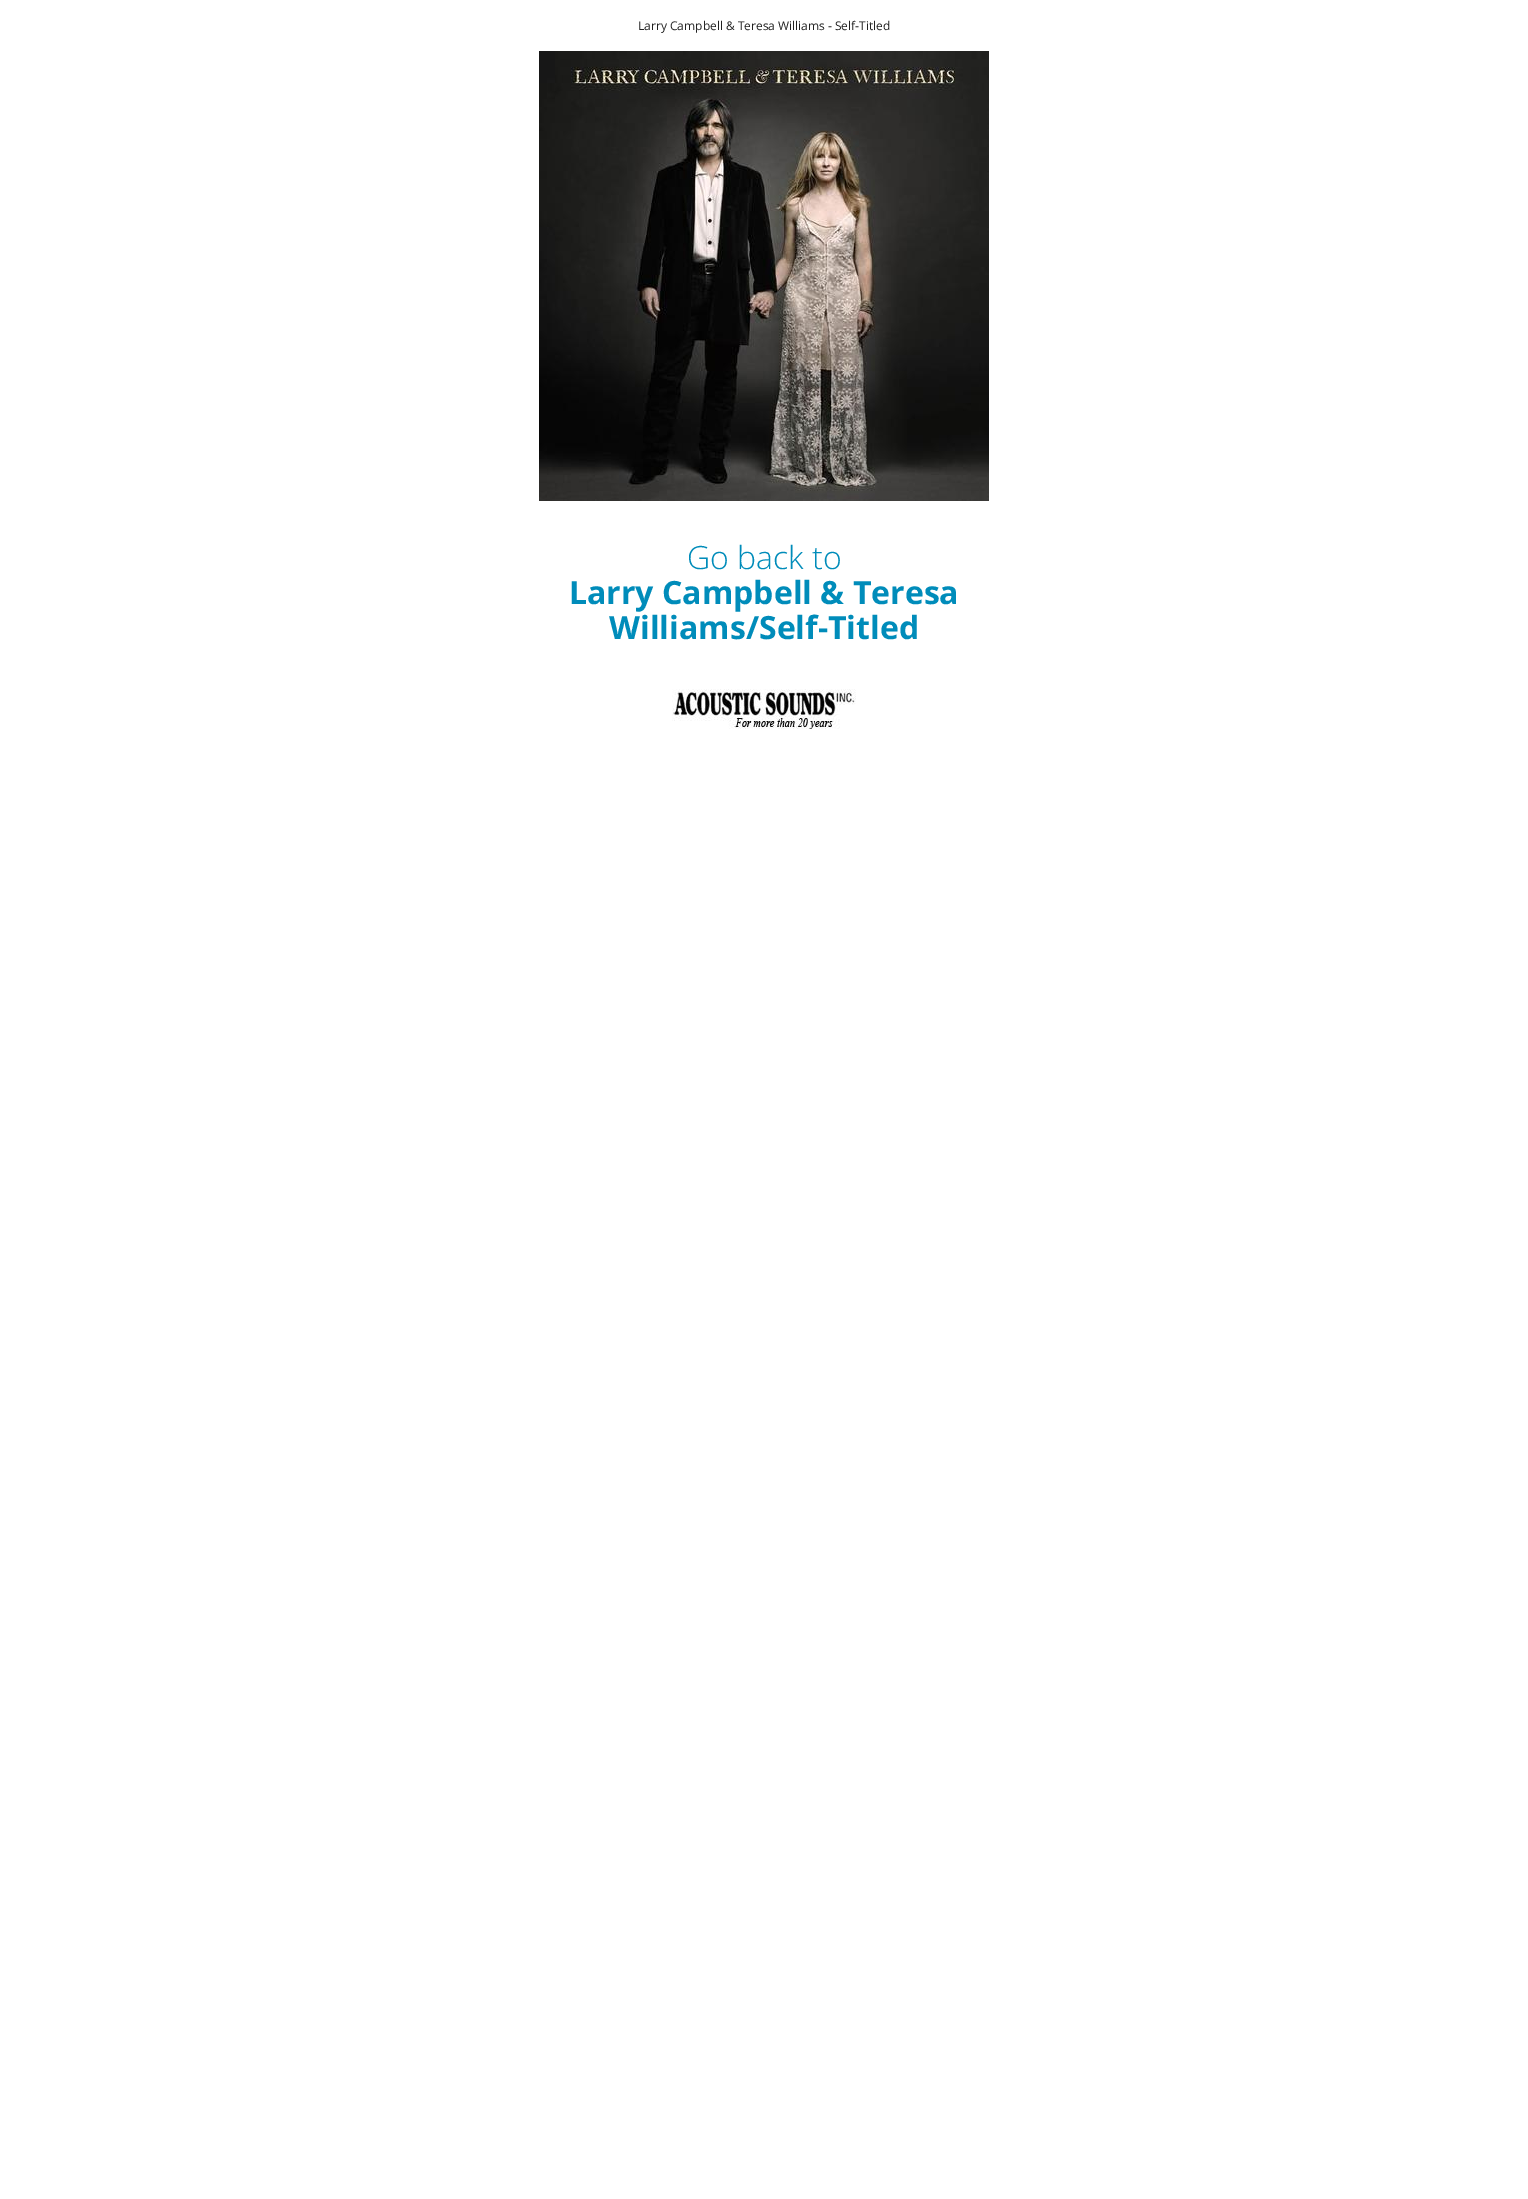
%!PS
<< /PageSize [1528 2199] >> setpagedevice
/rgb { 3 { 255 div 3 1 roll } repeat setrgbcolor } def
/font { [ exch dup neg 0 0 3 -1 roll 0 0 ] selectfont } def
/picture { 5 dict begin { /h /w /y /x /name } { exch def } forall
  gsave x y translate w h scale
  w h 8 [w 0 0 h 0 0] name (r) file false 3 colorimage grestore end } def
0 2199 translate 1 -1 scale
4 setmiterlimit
255 255 255 rgb
0 0 1528 2199 rectfill
(img/1.rgb) 539 51 450 450 picture
(img/2.rgb) 672 689 184 40 picture
/OpenSans-Regular 12 font
34 34 34 rgb
638 30 moveto (Larry Campbell & Teresa Williams - Self-Titled) show
/OpenSans-Light 32 font
0 140 186 rgb
687 569 moveto (Go back to) show
/OpenSans-Bold 32 font
569 604 moveto (Larry Campbell & Teresa) show
609 639 moveto (Williams/Self-Titled) show
showpage
